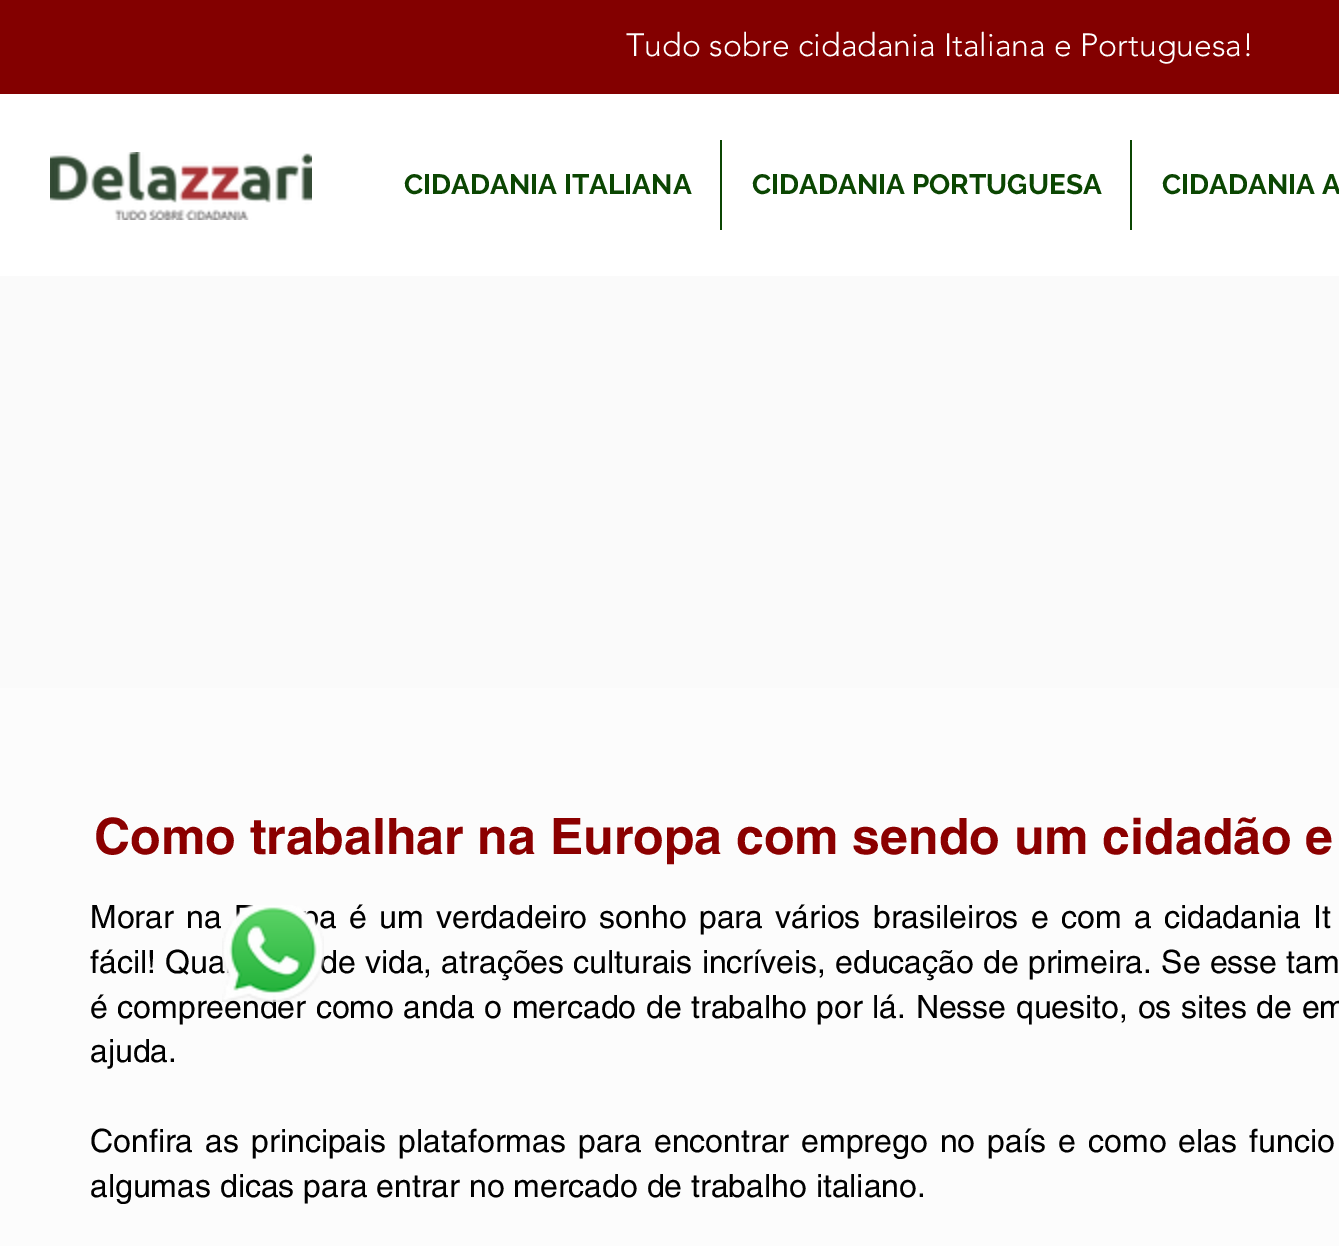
%!PS
<< /PageSize [1339 1246] >> setpagedevice
/rgb { 3 { 255 div 3 1 roll } repeat setrgbcolor } def
/font { [ exch dup neg 0 0 3 -1 roll 0 0 ] selectfont } def
/picture { 5 dict begin { /h /w /y /x /name } { exch def } forall
  gsave x y translate w h scale
  w h 8 [w 0 0 h 0 0] name (r) file false 3 colorimage grestore end } def
0 1246 translate 1 -1 scale
4 setmiterlimit
255 255 255 rgb
0 0 1339 1246 rectfill
131 0 0 rgb
0 0 1339 94 rectfill
(img/1.rgb) 50 152 262 68 picture
[
  [720 140 2 90 11 70 2]
  [1130 140 2 90 11 70 2]
  [0 276 1339 412 250 250 250]
  [0 688 1339 558 252 252 252]
] { aload pop rgb rectfill } forall
/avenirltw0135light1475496-Light 32 font
255 255 255 rgb
626 56 moveto (Tudo sobre cidadania Italiana e Portuguesa!) show
/Raleway-Bold 28 font
11 70 2 rgb
[
  [(CIDADANIA ITALIANA) 404 194]
  [(CIDADANIA PORTUGUESA) 752 194]
  [(CIDADANIA A) 1162 194]
] { aload pop moveto show } forall
/helvetica-Bold 50 font
139 0 0 rgb
94 854 moveto (Como trabalhar na Europa com sendo um cidadão e) show
/helvetica-Regular 32 font
0 0 0 rgb
90 928 moveto 3.4 0 32 (Morar na) widthshow
319 928 moveto 3.4 0 32 (a é um verdadeiro sonho para vários brasileiros e com a cidadania It) widthshow
90 973 moveto 0.25 0 32 (fácil! Qua) widthshow
320 973 moveto 0.25 0 32 (de vida, atrações culturais incríveis, educação de primeira. Se esse tam) widthshow
90 1018 moveto 0.75 0 32 (é compreender como anda o mercado de trabalho por lá. Nesse quesito, os sites de em) widthshow
90 1062 moveto (ajuda.) show
90 1152 moveto 3.25 0 32 (Confira as principais plataformas para encontrar emprego no país e como elas funcio) widthshow
90 1197 moveto (algumas dicas para entrar no mercado de trabalho italiano.) show
(img/2.rgb) 222 905 102 97 picture
showpage
